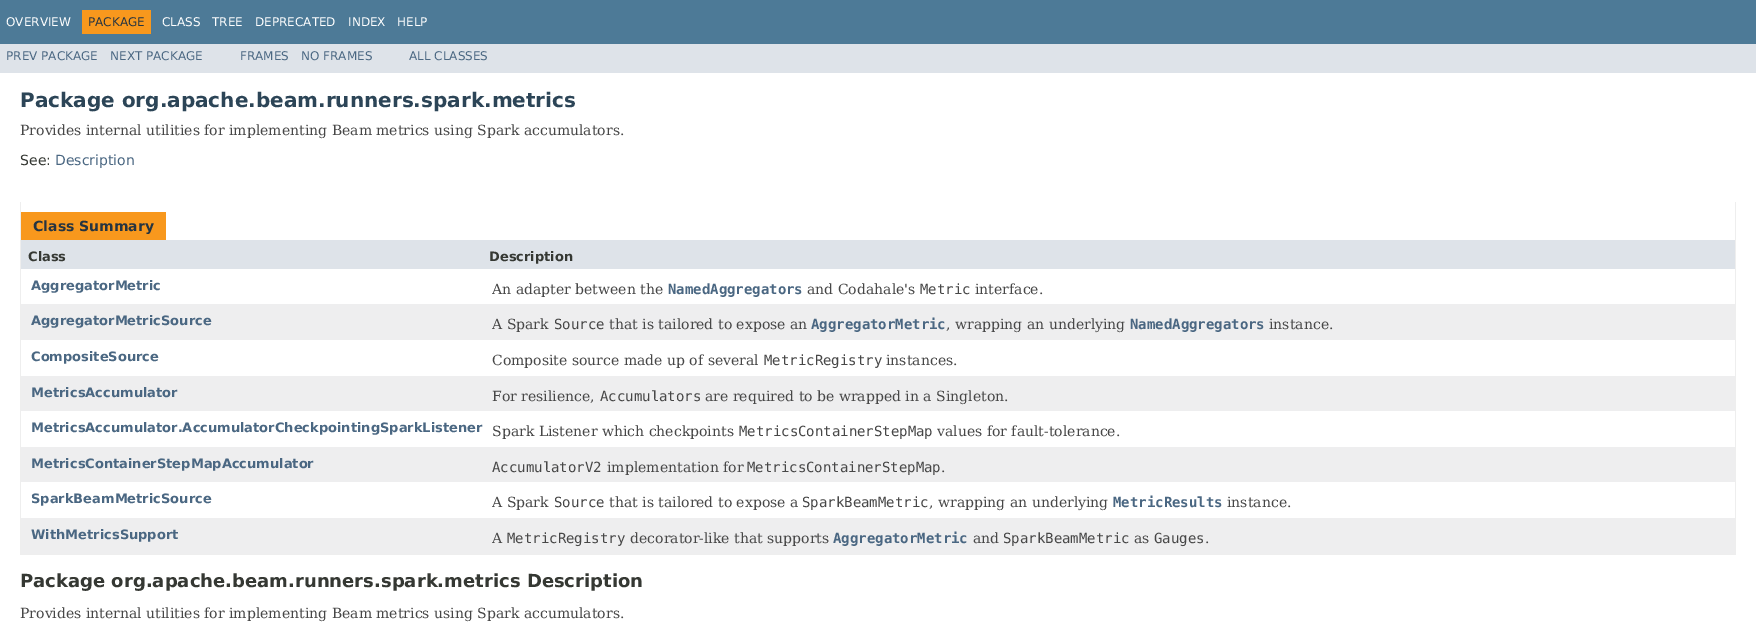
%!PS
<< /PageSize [1756 639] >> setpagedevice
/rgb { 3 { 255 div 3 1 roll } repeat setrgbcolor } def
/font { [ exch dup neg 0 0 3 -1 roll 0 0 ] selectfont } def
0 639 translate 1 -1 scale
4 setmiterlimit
255 255 255 rgb
0 0 1756 639 rectfill
[
  [0 0 1756 44 77 122 151]
  [82 10 69 24 248 152 29]
  [0 44 1756 29 222 227 233]
  [1735 202 1 353 238 238 238]
  [20 554 1716 1 238 238 238]
  [20 202 1 353 238 238 238]
  [21 212 145 28 248 152 29]
  [21 240 1714 29 222 227 233]
  [21 304 1714 36 238 238 239]
  [21 376 1714 35 238 238 239]
  [21 447 1714 35 238 238 239]
  [21 518 1714 36 238 238 239]
] { aload pop rgb rectfill } forall
/DejaVuSans-Regular 12 font
255 255 255 rgb
6 26 moveto (OVERVIEW) show
37 52 65 rgb
88 26 moveto (PACKAGE) show
255 255 255 rgb
[
  [(CLASS) 162 26]
  [(TREE) 212 26]
  [(DEPRECATED) 255 26]
  [(INDEX) 348 26]
  [(HELP) 397 26]
] { aload pop moveto show } forall
74 103 130 rgb
[
  [(PREV PACKAGE) 6 60]
  [(NEXT PACKAGE) 110 60]
  [(FRAMES) 240 60]
  [(NO FRAMES) 301 60]
  [(ALL CLASSES) 409 60]
] { aload pop moveto show } forall
/DejaVuSans-Bold 20 font
44 69 87 rgb
20 107 moveto (Package org.apache.beam.runners.spark.metrics) show
/DejaVuSerif-Regular 14 font
71 71 71 rgb
20 135 moveto (Provides internal utilities for implementing Beam metrics using Spark accumulators.) show
/DejaVuSans-Regular 14 font
53 56 51 rgb
20 165 moveto (See:) show
74 103 130 rgb
55 165 moveto (Description) show
/DejaVuSans-Bold 14 font
37 52 65 rgb
33 231 moveto (Class Summary) show
/DejaVuSans-Bold 13 font
53 56 51 rgb
28 261 moveto (Class) show
489 261 moveto (Description) show
74 103 130 rgb
31 290 moveto (AggregatorMetric) show
/DejaVuSerif-Regular 14 font
71 71 71 rgb
492 294 moveto (An adapter between the) show
/DejaVuSansMono-Bold 14 font
74 103 130 rgb
668 294 moveto (NamedAggregators) show
/DejaVuSerif-Regular 14 font
71 71 71 rgb
807 294 moveto (and Codahale's) show
/DejaVuSansMono-Regular 14 font
920 294 moveto (Metric) show
/DejaVuSerif-Regular 14 font
975 294 moveto (interface.) show
/DejaVuSans-Bold 13 font
74 103 130 rgb
31 325 moveto (AggregatorMetricSource) show
/DejaVuSerif-Regular 14 font
71 71 71 rgb
492 329 moveto (A Spark) show
/DejaVuSansMono-Regular 14 font
554 329 moveto (Source) show
/DejaVuSerif-Regular 14 font
609 329 moveto (that is tailored to expose an) show
/DejaVuSansMono-Bold 14 font
74 103 130 rgb
811 329 moveto (AggregatorMetric) show
/DejaVuSerif-Regular 14 font
71 71 71 rgb
946 329 moveto (, wrapping an underlying) show
/DejaVuSansMono-Bold 14 font
74 103 130 rgb
1130 329 moveto (NamedAggregators) show
/DejaVuSerif-Regular 14 font
71 71 71 rgb
1269 329 moveto (instance.) show
/DejaVuSans-Bold 13 font
74 103 130 rgb
31 361 moveto (CompositeSource) show
/DejaVuSerif-Regular 14 font
71 71 71 rgb
492 365 moveto (Composite source made up of several) show
/DejaVuSansMono-Regular 14 font
764 365 moveto (MetricRegistry) show
/DejaVuSerif-Regular 14 font
886 365 moveto (instances.) show
/DejaVuSans-Bold 13 font
74 103 130 rgb
31 397 moveto (MetricsAccumulator) show
/DejaVuSerif-Regular 14 font
71 71 71 rgb
492 401 moveto (For resilience,) show
/DejaVuSansMono-Regular 14 font
600 401 moveto (Accumulators) show
/DejaVuSerif-Regular 14 font
705 401 moveto (are required to be wrapped in a Singleton.) show
/DejaVuSans-Bold 13 font
74 103 130 rgb
31 432 moveto (MetricsAccumulator.AccumulatorCheckpointingSparkListener) show
/DejaVuSerif-Regular 14 font
71 71 71 rgb
492 436 moveto (Spark Listener which checkpoints) show
/DejaVuSansMono-Regular 14 font
739 436 moveto (MetricsContainerStepMap) show
/DejaVuSerif-Regular 14 font
937 436 moveto (values for fault-tolerance.) show
/DejaVuSans-Bold 13 font
74 103 130 rgb
31 468 moveto (MetricsContainerStepMapAccumulator) show
/DejaVuSansMono-Regular 14 font
71 71 71 rgb
492 472 moveto (AccumulatorV2) show
/DejaVuSerif-Regular 14 font
607 472 moveto (implementation for) show
/DejaVuSansMono-Regular 14 font
747 472 moveto (MetricsContainerStepMap) show
/DejaVuSerif-Regular 14 font
941 472 moveto (.) show
/DejaVuSans-Bold 13 font
74 103 130 rgb
31 503 moveto (SparkBeamMetricSource) show
/DejaVuSerif-Regular 14 font
71 71 71 rgb
492 507 moveto (A Spark) show
/DejaVuSansMono-Regular 14 font
554 507 moveto (Source) show
/DejaVuSerif-Regular 14 font
609 507 moveto (that is tailored to expose a) show
/DejaVuSansMono-Regular 14 font
802 507 moveto (SparkBeamMetric) show
/DejaVuSerif-Regular 14 font
929 507 moveto (, wrapping an underlying) show
/DejaVuSansMono-Bold 14 font
74 103 130 rgb
1113 507 moveto (MetricResults) show
/DejaVuSerif-Regular 14 font
71 71 71 rgb
1227 507 moveto (instance.) show
/DejaVuSans-Bold 13 font
74 103 130 rgb
31 539 moveto (WithMetricsSupport) show
/DejaVuSerif-Regular 14 font
71 71 71 rgb
492 543 moveto (A) show
/DejaVuSansMono-Regular 14 font
507 543 moveto (MetricRegistry) show
/DejaVuSerif-Regular 14 font
630 543 moveto (decorator-like that supports) show
/DejaVuSansMono-Bold 14 font
74 103 130 rgb
833 543 moveto (AggregatorMetric) show
/DejaVuSerif-Regular 14 font
71 71 71 rgb
973 543 moveto (and) show
/DejaVuSansMono-Regular 14 font
1003 543 moveto (SparkBeamMetric) show
/DejaVuSerif-Regular 14 font
1134 543 moveto (as) show
/DejaVuSansMono-Regular 14 font
1154 543 moveto (Gauges) show
/DejaVuSerif-Regular 14 font
1205 543 moveto (.) show
/DejaVuSans-Bold 18 font
53 56 51 rgb
20 587 moveto (Package org.apache.beam.runners.spark.metrics Description) show
/DejaVuSerif-Regular 14 font
71 71 71 rgb
20 618 moveto (Provides internal utilities for implementing Beam metrics using Spark accumulators.) show
showpage
